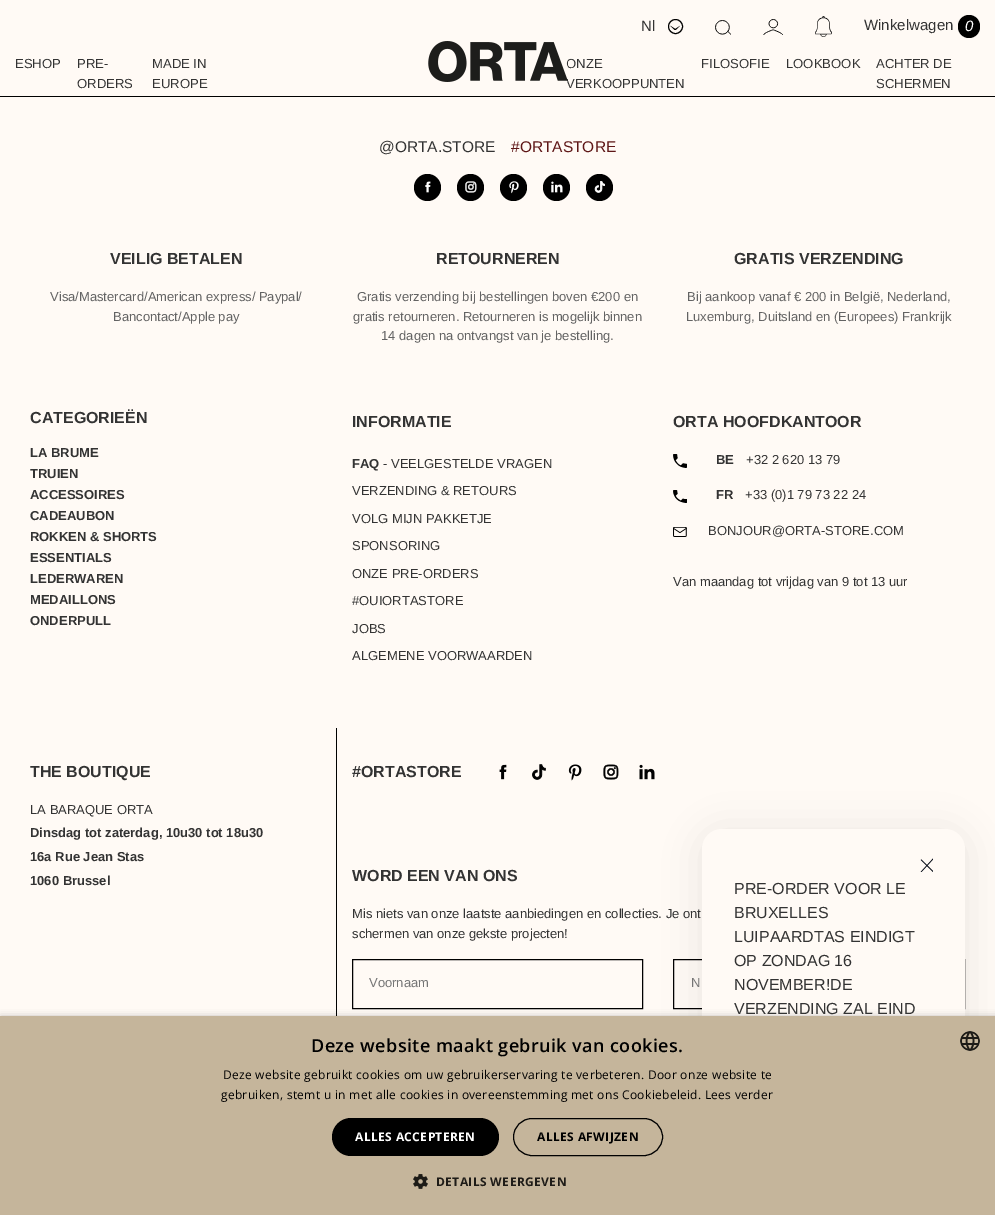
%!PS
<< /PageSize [995 1215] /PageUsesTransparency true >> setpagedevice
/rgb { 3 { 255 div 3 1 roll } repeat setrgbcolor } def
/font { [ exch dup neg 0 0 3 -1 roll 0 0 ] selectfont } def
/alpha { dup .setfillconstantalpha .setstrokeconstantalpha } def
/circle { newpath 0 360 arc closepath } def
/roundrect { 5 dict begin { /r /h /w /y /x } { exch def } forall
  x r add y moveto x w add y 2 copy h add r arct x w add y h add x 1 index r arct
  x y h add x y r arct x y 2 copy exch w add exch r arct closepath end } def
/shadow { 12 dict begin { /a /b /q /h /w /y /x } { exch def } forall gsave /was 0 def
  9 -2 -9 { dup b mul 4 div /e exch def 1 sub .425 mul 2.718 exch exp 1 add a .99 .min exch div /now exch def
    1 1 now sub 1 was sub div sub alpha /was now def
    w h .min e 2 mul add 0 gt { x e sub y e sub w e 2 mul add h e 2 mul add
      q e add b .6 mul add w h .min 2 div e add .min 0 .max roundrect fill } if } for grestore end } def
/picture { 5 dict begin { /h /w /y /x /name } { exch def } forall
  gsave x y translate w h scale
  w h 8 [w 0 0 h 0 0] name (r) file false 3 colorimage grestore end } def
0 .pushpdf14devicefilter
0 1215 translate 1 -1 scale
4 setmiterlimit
255 250 245 rgb
0 0 995 1215 rectfill
0 0 0 rgb
0 96 995 1 rectfill
675.5 26.5 7 circle stroke
(img/1.rgb) 670 25 10 5 picture
(img/2.rgb) 715 20 16 15 picture
(img/3.rgb) 763 19 20 16 picture
(img/4.rgb) 815 16 17 21 picture
958 15 22 23 11 roundrect fill
427.5 187.5 13.5 circle fill
(img/6.rgb) 425 181 6 12 picture
470.5 187.5 13.5 circle fill
(img/7.rgb) 465 181 12 12 picture
513.5 187.5 13.5 circle fill
(img/8.rgb) 509 181 10 13 picture
556.5 187.5 13.5 circle fill
(img/9.rgb) 551 181 12 12 picture
599.5 187.5 13.5 circle fill
(img/10.rgb) 594 181 11 12 picture
(img/11.rgb) 673 454 14 14 picture
(img/12.rgb) 673 490 14 13 picture
(img/13.rgb) 673 527 14 10 picture
336 728 1 288 rectfill
(img/14.rgb) 499 764 8 16 picture
(img/15.rgb) 532 764 14 16 picture
(img/16.rgb) 568 764 14 17 picture
(img/17.rgb) 603 764 16 16 picture
(img/18.rgb) 639 764 16 16 picture
352.5 959.5 290 49 rectstroke
673.5 959.5 291 49 rectstroke
702 832 263 356 20 18 0.08 shadow
255 250 245 rgb
702 829 263 356 20 roundrect fill
(img/19.rgb) 920 858 13 14 picture
0 0 0 rgb
1 1018 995 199 0 4 0.35 shadow
197 181 155 rgb
0 1016 995 199 rectfill
(img/20.rgb) 960 1031 20 20 picture
0 0 0 rgb
332 1118 167 38 19 roundrect fill
513.5 1118.5 149 37 18.5 roundrect stroke
(img/21.rgb) 413 1174 15 15 picture
/LiberationSans-Regular 15 font
51 51 51 rgb
641 31 moveto (Nl) show
864 30 moveto (Winkelwagen) show
/LiberationSans-Italic 15 font
255 255 255 rgb
965 31 moveto (0) show
/LiberationSans-Regular 13.1 font
51 51 51 rgb
[
  [(ESHOP) 15 68]
  [(PRE-) 77 68]
  [(ORDERS) 77 88]
  [(MADE IN) 152 68]
  [(EUROPE) 152 88]
  [(ONZE) 566 68]
  [(VERKOOPPUNTEN) 566 88]
  [(FILOSOFIE) 701 68]
  [(LOOKBOOK) 786 68]
  [(ACHTER DE) 876 68]
  [(SCHERMEN) 876 88]
] { aload pop moveto show } forall
(img/5.rgb) 428 41 140 41 picture
/LiberationSans-Regular 15.5 font
379 152 moveto (@ORTA.STORE) show
94 22 22 rgb
511 152 moveto (#ORTASTORE) show
/LiberationSans-Bold 16 font
51 51 51 rgb
110 264 moveto (VEILIG BETALEN) show
/LiberationSans-Regular 13 font
99 99 99 rgb
50 301 moveto (Visa/Mastercard/American express/ Paypal/) show
113 321 moveto (Bancontact/Apple pay) show
/LiberationSans-Bold 16 font
51 51 51 rgb
436 264 moveto (RETOURNEREN) show
/LiberationSans-Regular 13 font
99 99 99 rgb
[
  [(Gratis verzending bij bestellingen boven €200 en) 357 301]
  [(gratis retourneren. Retourneren is mogelijk binnen) 353 321]
  [(14 dagen na ontvangst van je bestelling.) 381 340]
] { aload pop moveto show } forall
/LiberationSans-Bold 16 font
51 51 51 rgb
734 264 moveto (GRATIS VERZENDING) show
/LiberationSans-Regular 13 font
99 99 99 rgb
687 301 moveto (Bij aankoop vanaf € 200 in België, Nederland,) show
686 321 moveto (Luxemburg, Duitsland en \(Europees\) Frankrijk) show
/LiberationSans-Bold 16 font
51 51 51 rgb
30 423 moveto (CATEGORIEËN) show
/LiberationSans-Bold 13 font
[
  [(LA BRUME) 30 457]
  [(TRUIEN) 30 478]
  [(ACCESSOIRES) 30 499]
  [(CADEAUBON) 30 520]
  [(ROKKEN & SHORTS) 30 541]
  [(ESSENTIALS) 30 562]
  [(LEDERWAREN) 30 583]
  [(MEDAILLONS) 30 604]
  [(ONDERPULL) 30 625]
] { aload pop moveto show } forall
/LiberationSans-Bold 16 font
352 427 moveto (INFORMATIE) show
/LiberationSans-Bold 13 font
352 468 moveto (FAQ) show
/LiberationSans-Regular 13 font
[
  [(- VEELGESTELDE VRAGEN) 383 468]
  [(VERZENDING & RETOURS) 352 495]
  [(VOLG MIJN PAKKETJE) 352 523]
  [(SPONSORING) 352 550]
  [(ONZE PRE-ORDERS) 352 578]
  [(#OUIORTASTORE) 352 605]
  [(JOBS) 352 633]
  [(ALGEMENE VOORWAARDEN) 352 660]
] { aload pop moveto show } forall
/LiberationSans-Bold 16 font
673 427 moveto (ORTA HOOFDKANTOOR) show
/LiberationSans-Bold 13 font
716 464 moveto (BE) show
/LiberationSans-Regular 13 font
746 464 moveto (+32 2 620 13 79) show
/LiberationSans-Bold 13 font
716 499 moveto (FR) show
/LiberationSans-Regular 13 font
[
  [(+33 \(0\)1 79 73 22 24) 745 499]
  [(BONJOUR@ORTA-STORE.COM) 708 535]
  [(Van maandag tot vrijdag van 9 tot 13 uur) 673 586]
] { aload pop moveto show } forall
/LiberationSans-Bold 16 font
30 777 moveto (THE BOUTIQUE) show
/LiberationSans-Regular 13 font
30 814 moveto (LA BARAQUE ORTA) show
/LiberationSans-Bold 13 font
[
  [(Dinsdag tot zaterdag, 10u30 tot 18u30) 30 837]
  [(16a Rue Jean Stas) 30 861]
  [(1060 Brussel) 30 885]
] { aload pop moveto show } forall
/LiberationSans-Bold 16 font
352 777 moveto (#ORTASTORE) show
352 881 moveto (WORD EEN VAN ONS) show
/LiberationSans-Regular 13 font
352 918 moveto (Mis niets van onze laatste aanbiedingen en collecties. Je ont) show
352 938 moveto (schermen van onze gekste projecten!) show
117 117 117 rgb
369 987 moveto (Voornaam) show
691 987 moveto (N) show
/LiberationSans-Regular 16 font
51 51 51 rgb
[
  [(PRE-ORDER VOOR LE) 734 894]
  [(BRUXELLES) 734 918]
  [(LUIPAARDTAS EINDIGT) 734 942]
  [(OP ZONDAG 16) 734 966]
  [(NOVEMBER!DE) 734 990]
  [(VERZENDING ZAL EIND) 734 1014]
] { aload pop moveto show } forall
/OpenSans-SemiBold 18 font
0 0 0 rgb
311 1052 moveto 0.4 0 (Deze website maakt gebruik van cookies.) ashow
/OpenSans-Regular 12 font
223 1079 moveto 0.3 0 (Deze website gebruikt cookies om uw gebruikerservaring te verbeteren. Door onze website te) ashow
221 1099 moveto 0.3 0 (gebruiken, stemt u in met alle cookies in overeenstemming met ons Cookiebeleid. Lees verder) ashow
/OpenSans-Bold 12 font
255 255 255 rgb
355 1141 moveto 0.4 0 (ALLES ACCEPTEREN) ashow
0 0 0 rgb
537 1141 moveto 0.4 0 (ALLES AFWIJZEN) ashow
30 27 23 rgb
436 1186 moveto 0.4 0 (DETAILS WEERGEVEN) ashow
.poppdf14devicefilter showpage
